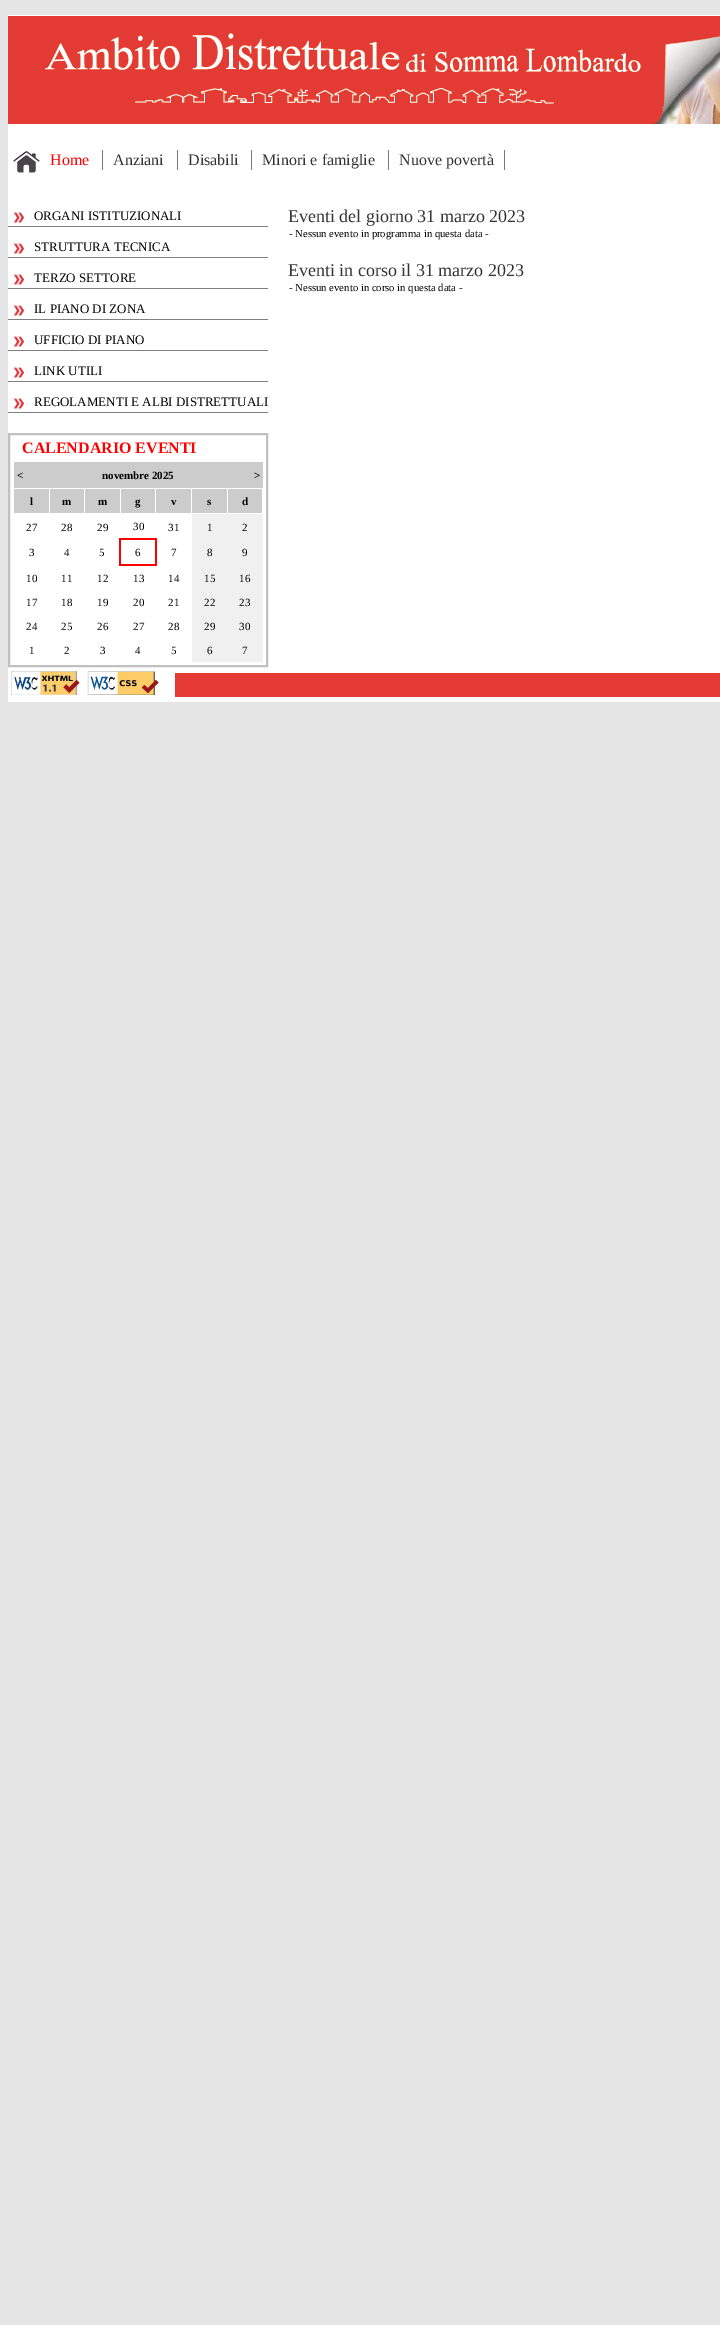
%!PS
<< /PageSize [720 2325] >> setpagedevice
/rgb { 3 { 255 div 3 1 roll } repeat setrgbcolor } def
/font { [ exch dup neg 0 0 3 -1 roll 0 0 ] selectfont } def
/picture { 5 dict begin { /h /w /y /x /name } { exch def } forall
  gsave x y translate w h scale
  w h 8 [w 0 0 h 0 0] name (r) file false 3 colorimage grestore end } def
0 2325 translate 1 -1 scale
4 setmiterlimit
229 229 229 rgb
0 0 720 2325 rectfill
255 255 255 rgb
8 15 712 687 rectfill
(img/1.rgb) 8 16 712 108 picture
(img/2.rgb) 13 151 27 22 picture
[
  [102 150 1 20 120 120 120]
  [177 150 1 20 120 120 120]
  [251 150 1 20 120 120 120]
  [388 150 1 20 120 120 120]
  [504 150 1 20 120 120 120]
  [8 226 260 1 128 128 128]
] { aload pop rgb rectfill } forall
(img/3.rgb) 14 212 11 11 picture
8 257 260 1 rectfill
(img/3.rgb) 14 243 11 11 picture
8 288 260 1 rectfill
(img/3.rgb) 14 274 11 11 picture
8 319 260 1 rectfill
(img/3.rgb) 14 305 11 11 picture
8 350 260 1 rectfill
(img/3.rgb) 14 336 11 11 picture
8 381 260 1 rectfill
(img/3.rgb) 14 367 11 11 picture
8 412 260 1 rectfill
(img/3.rgb) 14 398 11 11 picture
192 192 192 rgb
2 setlinewidth
9 434 258 232 rectstroke
[
  [14 462 249 26 204 204 204]
  [14 489 35 24 204 204 204]
  [50 489 34 24 204 204 204]
  [85 489 35 24 204 204 204]
  [121 489 34 24 204 204 204]
  [156 489 35 24 204 204 204]
  [192 489 35 24 204 204 204]
  [228 489 34 24 204 204 204]
  [192 514 71 25 240 240 240]
  [119 538 38 2 255 0 0]
  [155 538 2 28 255 0 0]
  [119 564 38 2 255 0 0]
  [119 538 2 28 255 0 0]
  [192 539 71 26 240 240 240]
  [192 565 71 25 240 240 240]
  [192 590 71 24 240 240 240]
  [192 614 71 24 240 240 240]
  [192 638 71 24 240 240 240]
] { aload pop rgb rectfill } forall
(img/4.rgb) 11 671 69 24 picture
(img/5.rgb) 87 671 72 24 picture
229 58 52 rgb
175 673 545 24 rectfill
/LiberationSerif-Regular 16 font
255 0 0 rgb
50 165 moveto (Home) show
51 51 51 rgb
[
  [(Anziani) 113 165]
  [(Disabili) 188 165]
  [(Minori e famiglie) 262 165]
  [(Nuove povertà) 399 165]
] { aload pop moveto show } forall
/LiberationSerif-Regular 13 font
0 0 0 rgb
[
  [(ORGANI ISTITUZIONALI) 34 220]
  [(STRUTTURA TECNICA) 34 251]
  [(TERZO SETTORE) 34 282]
  [(IL PIANO DI ZONA) 34 313]
  [(UFFICIO DI PIANO) 34 344]
  [(LINK UTILI) 34 375]
  [(REGOLAMENTI E ALBI DISTRETTUALI) 34 406]
] { aload pop moveto show } forall
/LiberationSerif-Bold 16 font
255 0 0 rgb
22 453 moveto (CALENDARIO EVENTI) show
/LiberationSerif-Bold 11 font
0 0 0 rgb
[
  [(<) 17 479]
  [(novembre 2025) 102 479]
  [(>) 254 479]
  [(l) 30 505]
  [(m) 62 505]
  [(m) 98 505]
  [(g) 135 505]
  [(v) 171 505]
  [(s) 207 505]
  [(d) 242 505]
] { aload pop moveto show } forall
/LiberationSerif-Regular 11 font
[
  [(27) 26 531]
  [(28) 61 531]
  [(29) 97 531]
  [(30) 133 530]
  [(31) 168 531]
  [(1) 207 531]
  [(2) 242 531]
  [(3) 29 556]
  [(4) 64 556]
  [(5) 99 556]
  [(6) 135 556]
  [(7) 171 556]
  [(8) 207 556]
  [(9) 242 556]
  [(10) 26 582]
  [(11) 61 582]
  [(12) 97 582]
  [(13) 133 582]
  [(14) 168 582]
  [(15) 204 582]
  [(16) 239 582]
  [(17) 26 606]
  [(18) 61 606]
  [(19) 97 606]
  [(20) 133 606]
  [(21) 168 606]
  [(22) 204 606]
  [(23) 239 606]
  [(24) 26 630]
  [(25) 61 630]
  [(26) 97 630]
  [(27) 133 630]
  [(28) 168 630]
  [(29) 204 630]
  [(30) 239 630]
  [(1) 29 654]
  [(2) 64 654]
  [(3) 100 654]
  [(4) 135 654]
  [(5) 171 654]
  [(6) 207 654]
  [(7) 242 654]
] { aload pop moveto show } forall
/LiberationSerif-Regular 18 font
51 51 51 rgb
288 222 moveto (Eventi del giorno 31 marzo 2023) show
/LiberationSerif-Regular 10.7 font
0 0 0 rgb
289 237 moveto (- Nessun evento in programma in questa data -) show
/LiberationSerif-Regular 18 font
51 51 51 rgb
288 276 moveto (Eventi in corso il 31 marzo 2023) show
/LiberationSerif-Regular 10.7 font
0 0 0 rgb
289 291 moveto (- Nessun evento in corso in questa data -) show
showpage
